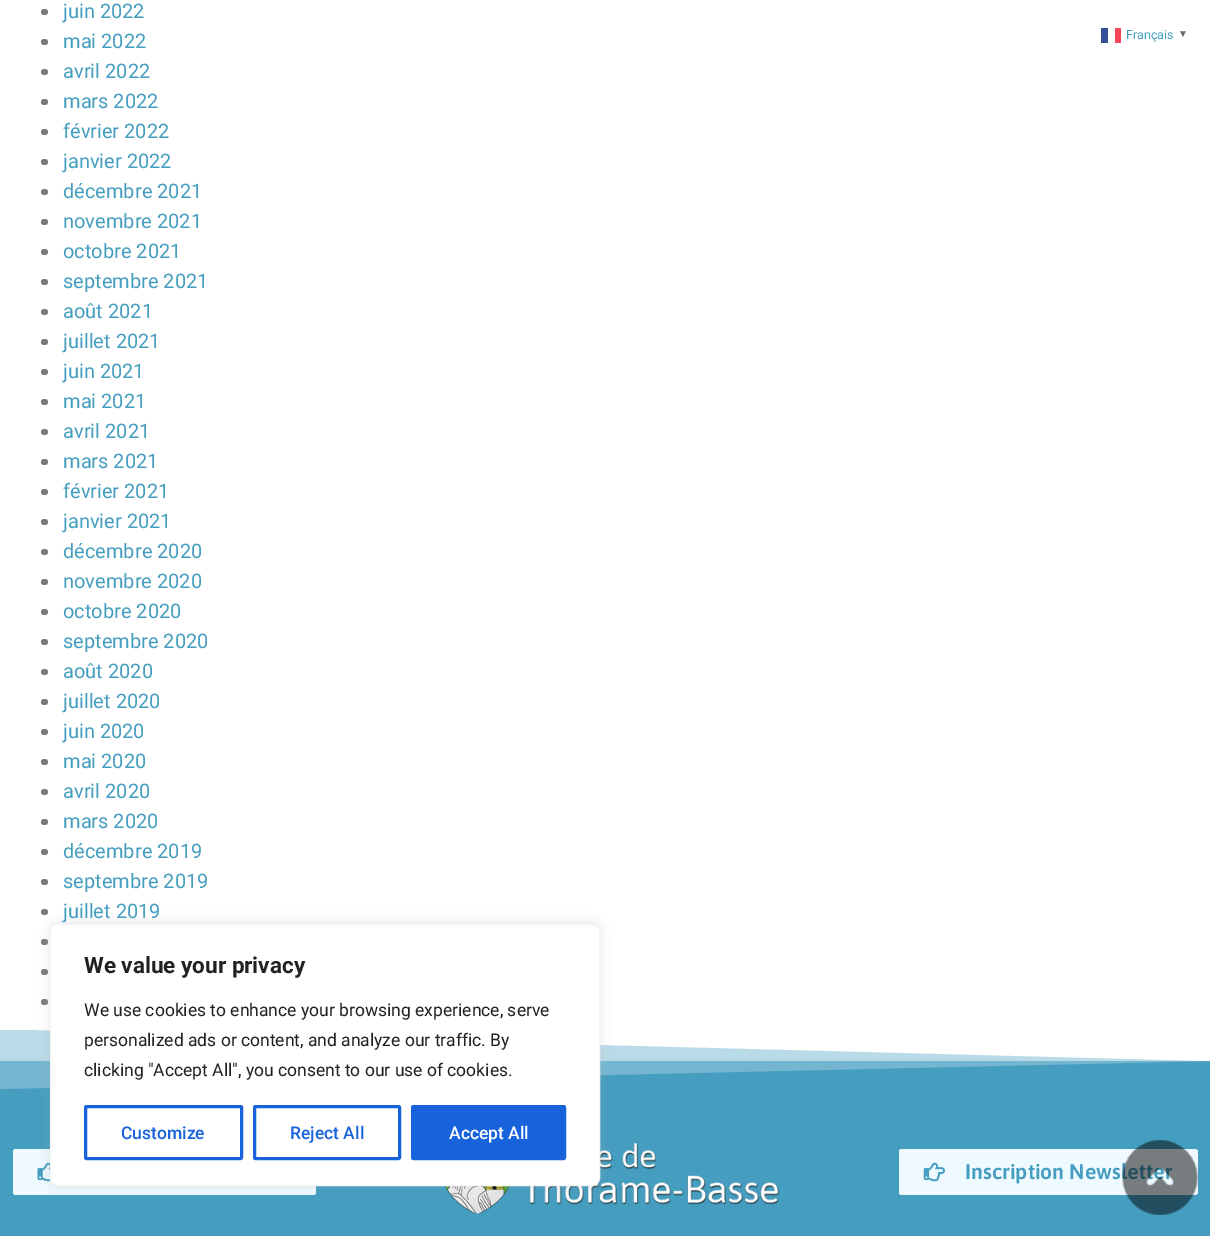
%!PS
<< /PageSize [1210 1236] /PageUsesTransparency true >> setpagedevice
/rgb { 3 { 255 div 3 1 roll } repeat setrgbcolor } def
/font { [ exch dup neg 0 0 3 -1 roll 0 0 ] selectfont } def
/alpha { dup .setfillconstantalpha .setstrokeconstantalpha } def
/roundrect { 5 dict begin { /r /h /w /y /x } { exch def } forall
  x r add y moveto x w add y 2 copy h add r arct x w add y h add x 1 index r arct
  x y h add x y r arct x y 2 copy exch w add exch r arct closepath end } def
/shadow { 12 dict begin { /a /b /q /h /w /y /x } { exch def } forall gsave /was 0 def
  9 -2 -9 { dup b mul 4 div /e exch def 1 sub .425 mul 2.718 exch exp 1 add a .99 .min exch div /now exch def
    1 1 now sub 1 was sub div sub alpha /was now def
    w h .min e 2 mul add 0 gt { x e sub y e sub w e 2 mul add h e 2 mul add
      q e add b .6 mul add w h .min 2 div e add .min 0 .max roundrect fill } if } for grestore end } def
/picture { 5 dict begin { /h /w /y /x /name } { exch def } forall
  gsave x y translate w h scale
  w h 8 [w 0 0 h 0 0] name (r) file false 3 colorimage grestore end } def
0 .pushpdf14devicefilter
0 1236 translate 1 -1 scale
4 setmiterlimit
255 255 255 rgb
0 0 1210 1236 rectfill
122 122 122 rgb
41 9 7 6 3 roundrect fill
41 39 7 6 3 roundrect fill
41 69 7 6 3 roundrect fill
41 99 7 6 3 roundrect fill
41 129 7 6 3 roundrect fill
41 159 7 6 3 roundrect fill
41 189 7 6 3 roundrect fill
41 219 7 6 3 roundrect fill
41 249 7 6 3 roundrect fill
41 279 7 6 3 roundrect fill
41 309 7 6 3 roundrect fill
41 339 7 6 3 roundrect fill
41 369 7 6 3 roundrect fill
41 399 7 6 3 roundrect fill
41 429 7 6 3 roundrect fill
41 459 7 6 3 roundrect fill
41 489 7 6 3 roundrect fill
41 519 7 6 3 roundrect fill
41 549 7 6 3 roundrect fill
41 579 7 6 3 roundrect fill
41 609 7 6 3 roundrect fill
41 639 7 6 3 roundrect fill
41 669 7 6 3 roundrect fill
41 699 7 6 3 roundrect fill
41 729 7 6 3 roundrect fill
41 759 7 6 3 roundrect fill
41 789 7 6 3 roundrect fill
41 819 7 6 3 roundrect fill
41 849 7 6 3 roundrect fill
41 879 7 6 3 roundrect fill
41 909 7 6 3 roundrect fill
41 939 7 6 3 roundrect fill
41 969 7 6 3 roundrect fill
41 999 7 6 3 roundrect fill
[
  [1101 28 7 15 51 81 153]
  [1115 28 6 15 245 70 89]
  [0 1061 1210 175 69 157 191]
  [0 1030 1210 31 162 206 223]
] { aload pop rgb rectfill } forall
255 255 255 rgb
-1 1029 moveto 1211 1029 lineto 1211 1061 lineto closepath fill
0.25 alpha
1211 1029 moveto -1 1029 lineto -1 1089 lineto 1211 1061 lineto closepath fill
1 alpha
238 250 255 rgb
13 1149 303 46 2.5 roundrect fill
(img/2.rgb) 37 1162 14 20 picture
(img/3.rgb) 445 1143 335 71 picture
172 171 171 rgb
50 923 550 262 8 6 0.3 shadow
255 255 255 rgb
50.5 924.5 549 261 7.5 roundrect gsave fill grestore
244 244 244 rgb
stroke
24 99 220 rgb
3 setlinewidth
85.5 1106.5 156 52 1 roundrect stroke
254.5 1106.5 145 52 1 roundrect stroke
412.5 1106.5 152 52 1 roundrect gsave fill grestore
stroke
238 250 255 rgb
899 1149 299 46 2.5 roundrect fill
(img/4.rgb) 923 1162 22 20 picture
/Roboto-Regular 20 font
69 157 191 rgb
[
  [(juin 2022) 63 18]
  [(mai 2022) 63 48]
  [(avril 2022) 63 78]
  [(mars 2022) 63 108]
  [(février 2022) 63 138]
  [(janvier 2022) 63 168]
  [(décembre 2021) 63 198]
  [(novembre 2021) 63 228]
  [(octobre 2021) 63 258]
  [(septembre 2021) 63 288]
  [(août 2021) 63 318]
  [(juillet 2021) 63 348]
  [(juin 2021) 63 378]
  [(mai 2021) 63 408]
  [(avril 2021) 63 438]
  [(mars 2021) 63 468]
  [(février 2021) 63 498]
  [(janvier 2021) 63 528]
  [(décembre 2020) 63 558]
  [(novembre 2020) 63 588]
  [(octobre 2020) 63 618]
  [(septembre 2020) 63 648]
  [(août 2020) 63 678]
  [(juillet 2020) 63 708]
  [(juin 2020) 63 738]
  [(mai 2020) 63 768]
  [(avril 2020) 63 798]
  [(mars 2020) 63 828]
  [(décembre 2019) 63 858]
  [(septembre 2019) 63 888]
  [(juillet 2019) 63 918]
] { aload pop moveto show } forall
/Roboto-Regular 12.5 font
1126 39 moveto (Français) show
/LiberationSans-Bold 10 font
102 102 102 rgb
1178 37 moveto (▼) show
/Roboto-Bold 22.5 font
33 33 33 rgb
84 973 moveto (We value your privacy) show
/Roboto-Regular 17.5 font
[
  [(We use cookies to enhance your browsing experience, serve) 84 1016]
  [(personalized ads or content, and analyze our traffic. By) 84 1046]
  [(clicking "Accept All", you consent to our use of cookies.) 84 1076]
] { aload pop moveto show } forall
/Roboto-Medium 17.5 font
24 99 220 rgb
121 1139 moveto (Customize) show
290 1139 moveto (Reject All) show
255 255 255 rgb
449 1139 moveto (Accept All) show
/Asap-SemiBold 21.25 font
69 157 191 rgb
965 1179 moveto (Inscription Newsletter) show
(img/1.rgb) 1122 1140 76 75 picture
.poppdf14devicefilter showpage
